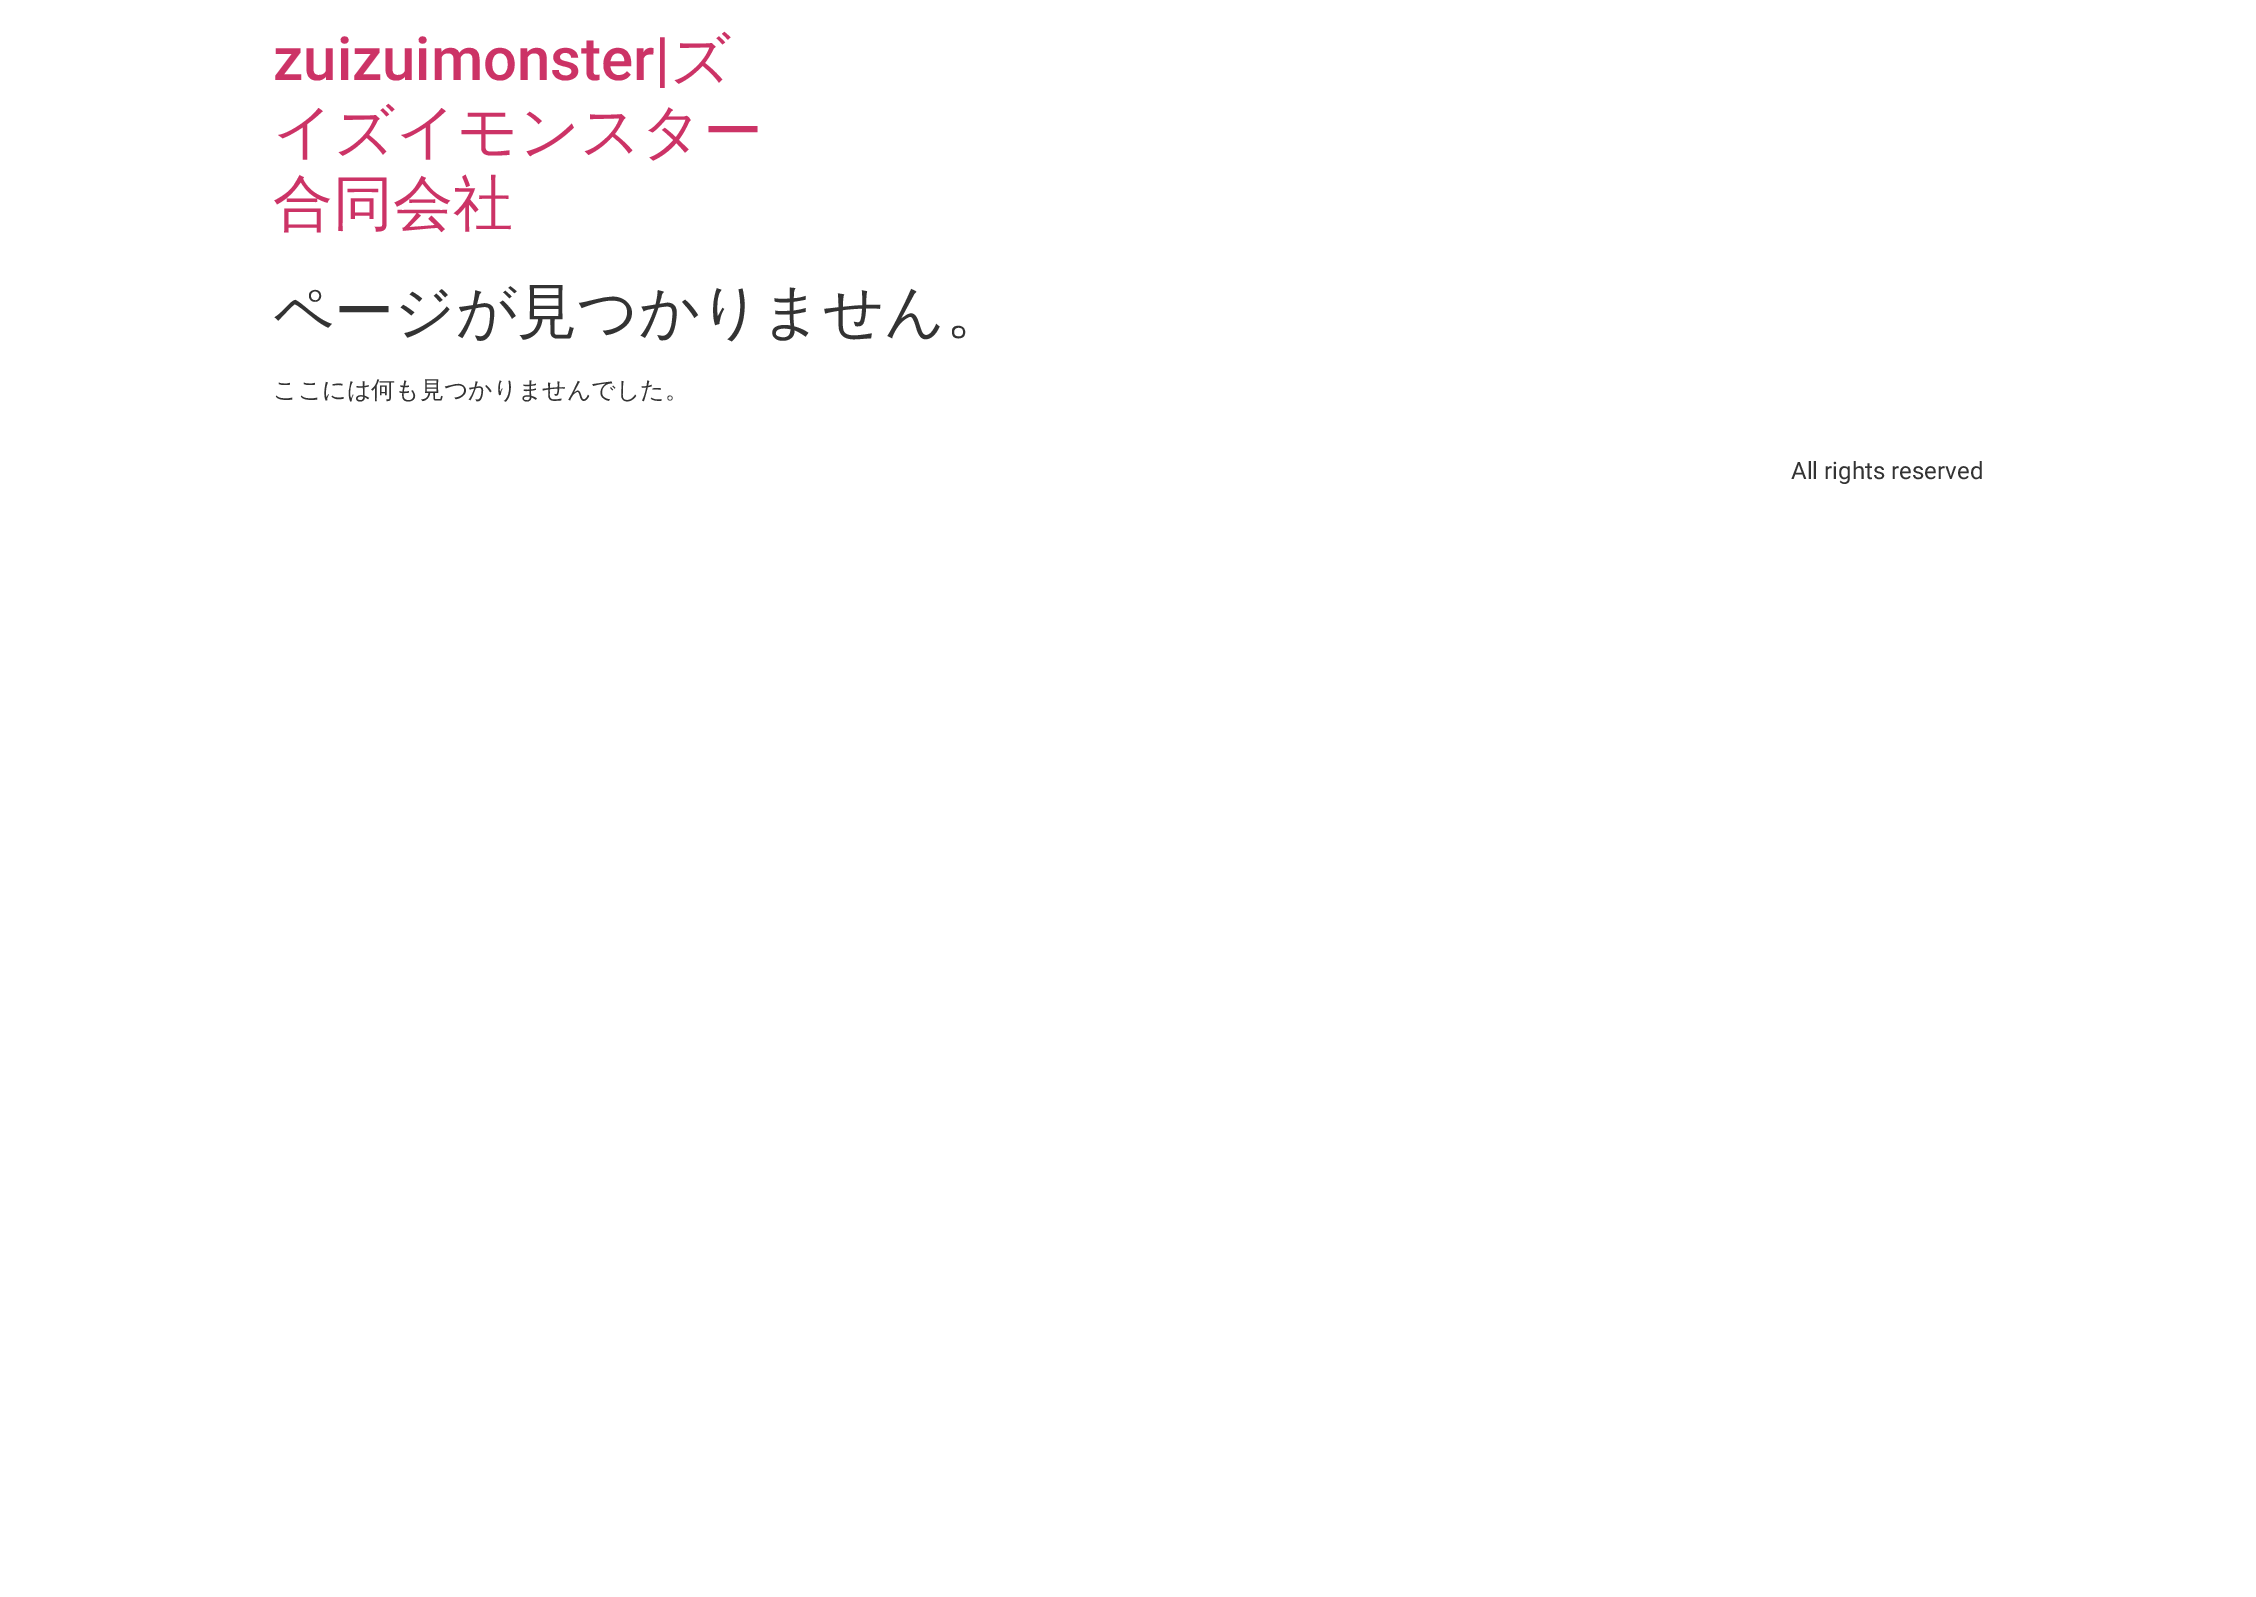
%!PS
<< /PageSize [2256 1597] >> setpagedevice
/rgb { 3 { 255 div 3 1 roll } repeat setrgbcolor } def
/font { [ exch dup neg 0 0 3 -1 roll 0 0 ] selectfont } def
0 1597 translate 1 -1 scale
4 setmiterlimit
255 255 255 rgb
0 0 2256 1597 rectfill
/Roboto-Medium 60 font
204 51 102 rgb
273 80 moveto (zuizuimonster|) show
/WenQuanYiZenHei-Medium 60 font
[
  [(ズ) 670 80]
  [(イズイモンスター) 273 152]
  [(合同会社) 273 224]
] { aload pop moveto show } forall
51 51 51 rgb
273 332 moveto (ページが見つかりません。) show
/WenQuanYiZenHei-Medium 24 font
273 398 moveto (ここには何も見つかりませんでした。) show
/Roboto-Regular 24 font
1791 479 moveto (All rights reserved) show
showpage
